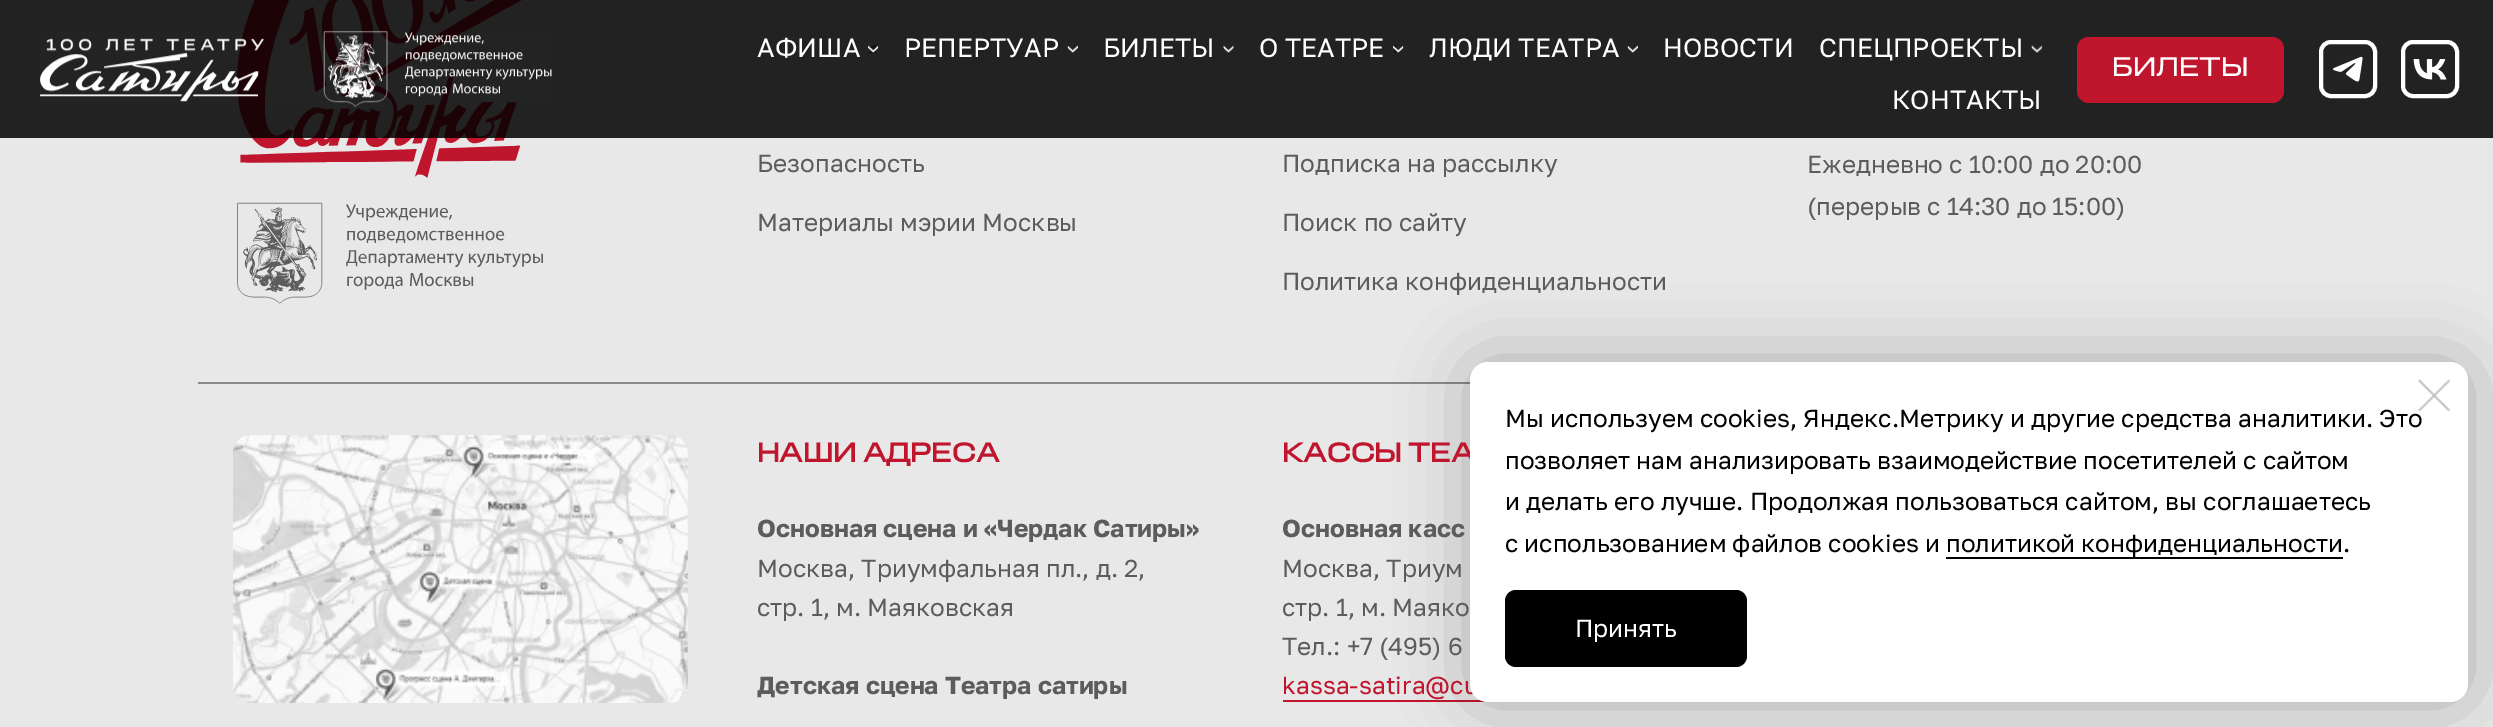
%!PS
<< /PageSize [2493 727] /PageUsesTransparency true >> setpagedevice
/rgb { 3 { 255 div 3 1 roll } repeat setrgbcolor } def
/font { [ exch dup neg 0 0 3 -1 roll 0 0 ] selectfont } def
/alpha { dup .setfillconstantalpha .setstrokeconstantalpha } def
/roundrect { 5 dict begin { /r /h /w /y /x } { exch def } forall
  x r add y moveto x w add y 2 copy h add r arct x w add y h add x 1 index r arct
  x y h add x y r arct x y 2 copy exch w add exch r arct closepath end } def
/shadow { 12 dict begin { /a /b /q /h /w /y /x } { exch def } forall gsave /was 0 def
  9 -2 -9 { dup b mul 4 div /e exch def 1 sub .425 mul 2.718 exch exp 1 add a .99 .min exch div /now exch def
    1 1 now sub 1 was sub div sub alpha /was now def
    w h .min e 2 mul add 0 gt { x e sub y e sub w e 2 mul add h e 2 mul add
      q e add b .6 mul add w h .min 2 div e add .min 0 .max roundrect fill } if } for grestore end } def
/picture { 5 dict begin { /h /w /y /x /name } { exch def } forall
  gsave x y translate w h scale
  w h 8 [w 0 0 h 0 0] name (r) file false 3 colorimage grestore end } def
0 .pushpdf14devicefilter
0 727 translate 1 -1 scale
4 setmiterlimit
232 232 232 rgb
0 0 2493 727 rectfill
(img/9.rgb) 237 0 306 304 picture
0.7 alpha
0 0 0 rgb
0 0 2493 138 rectfill
0.5 alpha
0 0 2493 138 rectfill
1 alpha
(img/1.rgb) 40 31 512 77 picture
(img/2.rgb) 868 45 11 8 picture
(img/3.rgb) 1067 45 11 8 picture
(img/4.rgb) 1223 45 11 8 picture
(img/5.rgb) 1393 45 11 8 picture
(img/3.rgb) 1627 45 11 8 picture
(img/6.rgb) 2031 45 12 8 picture
191 22 45 rgb
2077 37 207 66 12 roundrect fill
255 255 255 rgb
4 setlinewidth
2321 42 54 54 10 roundrect stroke
(img/7.rgb) 2333 56 30 26 picture
2403 42 54 54 10 roundrect stroke
(img/8.rgb) 2413 59 34 21 picture
138 138 138 rgb
198 382 1272 2 rectfill
(img/10.rgb) 233 435 455 268 picture
191 22 45 rgb
1283 700 205 2 rectfill
0 0 0 rgb
1470 362 998 340 18 35 0.25 shadow
/GolosText-Regular 26.25 font
255 255 255 rgb
[
  [(АФИША) 757 57]
  [(РЕПЕРТУАР) 904 57]
  [(БИЛЕТЫ) 1103 57]
  [(О ТЕАТРЕ) 1259 57]
  [(ЛЮДИ ТЕАТРА) 1429 57]
  [(НОВОСТИ) 1663 57]
  [(СПЕЦПРОЕКТЫ) 1819 57]
  [(КОНТАКТЫ) 1892 109]
] { aload pop moveto show } forall
/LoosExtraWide-Regular 28 font
2112 76 moveto (БИЛЕТЫ) show
/GolosText-Regular 24.5 font
92 92 92 rgb
[
  [(Безопасность) 757 172]
  [(Материалы мэрии Москвы) 757 231]
  [(Подписка на рассылку) 1282 172]
  [(Поиск по сайту) 1282 231]
  [(Политика конфиденциальности) 1282 290]
  [(Ежедневно с 10:00 до 20:00) 1807 173]
  [(\(перерыв с 14:30 до 15:00\)) 1807 215]
] { aload pop moveto show } forall
/LoosExtraWide-Bold 28 font
191 22 45 rgb
757 462 moveto (НАШИ АДРЕСА) show
/GolosText-Bold 24.5 font
92 92 92 rgb
757 537 moveto (Основная сцена и «Чердак Сатиры») show
/GolosText-Regular 24.5 font
757 577 moveto (Москва, Триумфальная пл., д. 2,) show
757 616 moveto (стр. 1, м. Маяковская) show
/GolosText-Bold 24.5 font
757 694 moveto (Детская сцена Театра сатиры) show
/LoosExtraWide-Bold 28 font
191 22 45 rgb
1282 462 moveto (КАССЫ ТЕА) show
/GolosText-Bold 24.5 font
92 92 92 rgb
1282 537 moveto (Основная касс) show
/GolosText-Regular 24.5 font
[
  [(Москва, Триум) 1282 577]
  [(стр. 1, м. Маяко) 1282 616]
  [(Тел.: +7 \(495\) 6) 1282 655]
] { aload pop moveto show } forall
191 22 45 rgb
1282 694 moveto (kassa-satira@cu) show
255 255 255 rgb
1470 362 998 340 18 roundrect fill
0 0 0 rgb
1505 427 moveto (Мы используем cookies, Яндекс.Метрику и другие средства аналитики. Это) show
(img/11.rgb) 2418 379 33 33 picture
[
  [(позволяет нам анализировать взаимодействие посетителей с сайтом) 1505 469]
  [(и делать его лучше. Продолжая пользоваться сайтом, вы соглашаетесь) 1505 510]
  [(с использованием файлов cookies и политикой конфиденциальности.) 1505 552]
] { aload pop moveto show } forall
1946 557 397 2 rectfill
1505 590 242 77 11 roundrect fill
255 255 255 rgb
1575 637 moveto (Принять) show
.poppdf14devicefilter showpage
